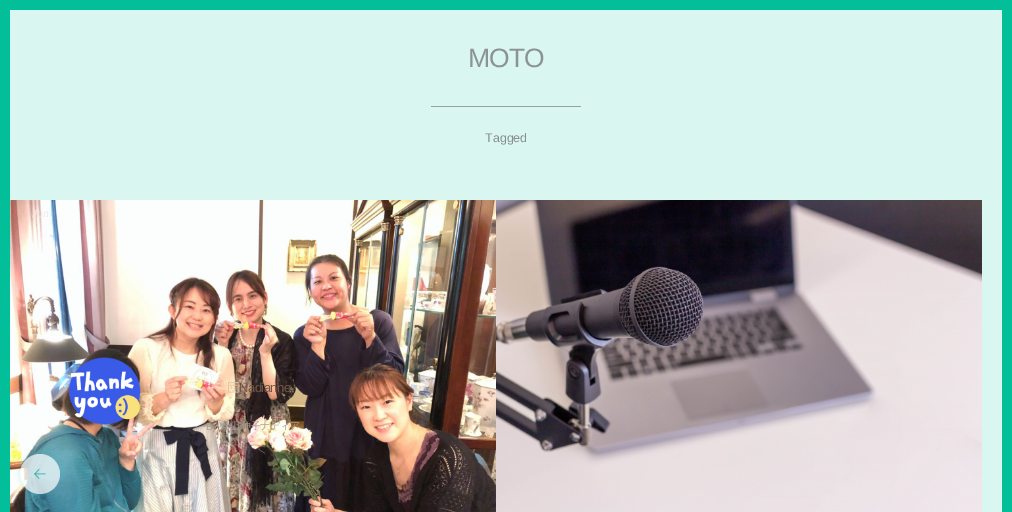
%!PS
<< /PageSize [1012 512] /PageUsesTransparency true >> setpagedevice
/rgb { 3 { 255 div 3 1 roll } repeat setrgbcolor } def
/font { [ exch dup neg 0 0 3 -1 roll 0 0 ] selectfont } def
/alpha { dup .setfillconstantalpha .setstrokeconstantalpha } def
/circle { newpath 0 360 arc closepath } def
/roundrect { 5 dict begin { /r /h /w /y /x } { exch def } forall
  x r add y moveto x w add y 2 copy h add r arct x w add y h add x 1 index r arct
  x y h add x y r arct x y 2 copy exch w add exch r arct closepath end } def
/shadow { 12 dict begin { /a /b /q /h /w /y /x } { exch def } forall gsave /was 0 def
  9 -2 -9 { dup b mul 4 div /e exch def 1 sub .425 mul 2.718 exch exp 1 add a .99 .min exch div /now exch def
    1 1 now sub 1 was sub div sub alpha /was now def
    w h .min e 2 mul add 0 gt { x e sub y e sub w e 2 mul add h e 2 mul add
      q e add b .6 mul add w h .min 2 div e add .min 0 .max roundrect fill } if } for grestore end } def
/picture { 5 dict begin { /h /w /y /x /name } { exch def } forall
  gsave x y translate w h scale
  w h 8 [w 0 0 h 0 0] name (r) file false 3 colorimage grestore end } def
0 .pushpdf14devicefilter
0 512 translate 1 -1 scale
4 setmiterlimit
3 191 153 rgb
0 0 1012 512 rectfill
217 246 240 rgb
10 10 992 502 rectfill
150 162 160 rgb
431 106 150 1 rectfill
(img/1.rgb) 10 200 486 312 picture
(img/2.rgb) 496 200 486 312 picture
gsave
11 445 moveto 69 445 lineto 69 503 lineto 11 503 lineto closepath 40 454 moveto 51 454 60 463 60 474 curveto 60 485 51 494 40 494 curveto 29 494 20 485 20 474 curveto 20 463 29 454 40 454 curveto closepath eoclip newpath
29 175 158 rgb
20 454 40 40 20 2.5 0.2 shadow
grestore
0.7 alpha
255 255 255 rgb
40 474 20 circle fill
1 alpha
(img/3.rgb) 34 469 12 10 picture
/LiberationSans-Regular 26.5 font
139 148 146 rgb
468 67 moveto -1 0 (MOTO) ashow
/LiberationSans-Regular 12.5 font
135 142 141 rgb
485 142 moveto (Tagged) show
/LiberationSerif-Italic 12 font
244 231 227 rgb
32 217 moveto (Jun) show
/WenQuanYiZenHei-Medium 13 font
233 195 163 rgb
227 392 moveto -0.5 0 (団) ashow
/LiberationSans-Regular 13 font
112 85 72 rgb
239 392 moveto -0.5 0 (Nadianne) ashow
/LiberationSans-Regular 10 font
174 157 143 rgb
206 430 moveto -0.5 0 (By) ashow
/WenQuanYiZenHei-Medium 10 font
220 429 moveto -0.5 0 (景山 伸子ナディア) ashow
.poppdf14devicefilter showpage
